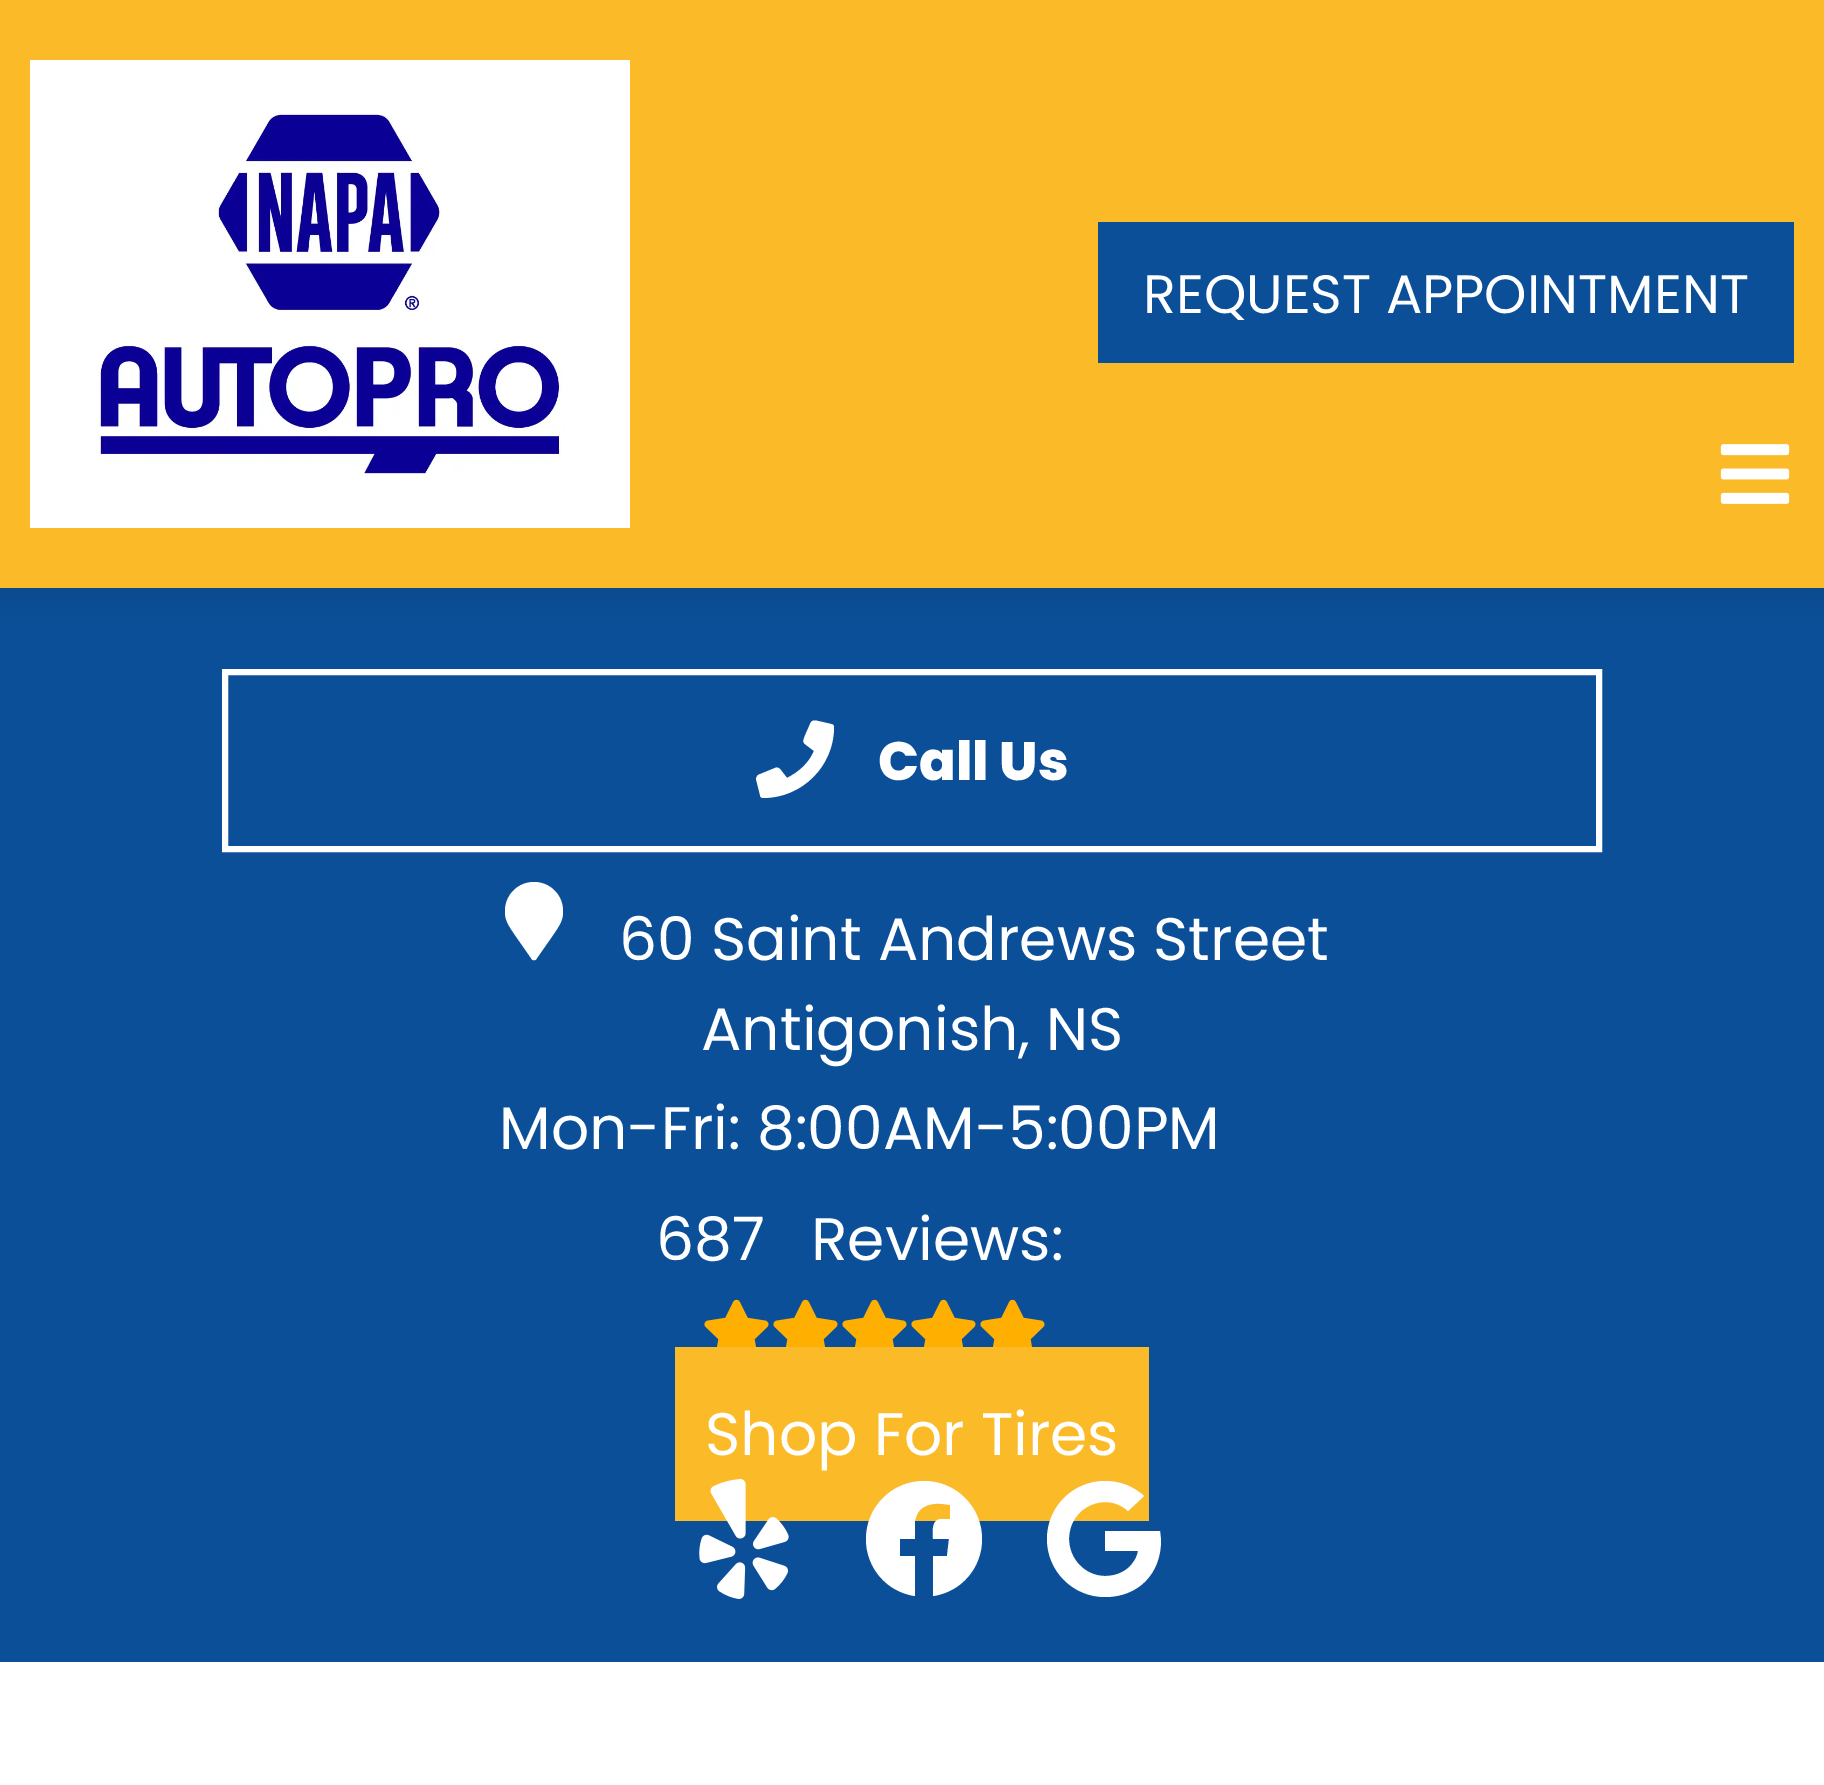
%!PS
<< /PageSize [1824 1785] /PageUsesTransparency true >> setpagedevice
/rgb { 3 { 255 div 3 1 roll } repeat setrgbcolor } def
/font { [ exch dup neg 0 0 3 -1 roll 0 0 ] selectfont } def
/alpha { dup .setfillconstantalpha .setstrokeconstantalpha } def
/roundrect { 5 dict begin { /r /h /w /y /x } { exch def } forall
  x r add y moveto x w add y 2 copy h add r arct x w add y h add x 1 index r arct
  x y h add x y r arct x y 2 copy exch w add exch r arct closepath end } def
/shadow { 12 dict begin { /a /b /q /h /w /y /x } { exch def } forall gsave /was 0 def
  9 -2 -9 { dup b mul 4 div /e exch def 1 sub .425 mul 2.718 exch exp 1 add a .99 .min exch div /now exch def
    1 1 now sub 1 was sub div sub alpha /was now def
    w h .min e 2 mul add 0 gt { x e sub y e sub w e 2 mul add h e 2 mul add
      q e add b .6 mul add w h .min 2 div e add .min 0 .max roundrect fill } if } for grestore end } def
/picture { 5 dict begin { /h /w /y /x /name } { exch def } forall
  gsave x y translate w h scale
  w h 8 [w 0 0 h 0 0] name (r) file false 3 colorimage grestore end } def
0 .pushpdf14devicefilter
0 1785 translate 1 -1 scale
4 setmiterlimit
255 255 255 rgb
0 0 1824 1785 rectfill
11 79 153 rgb
0 588 1824 1074 rectfill
0 0 0 rgb
0 9 1824 588 0 15 0.1 shadow
251 186 39 rgb
0 0 1824 588 rectfill
(img/1.rgb) 30 60 600 468 picture
11 79 153 rgb
1098 222 696 141 rectfill
(img/2.rgb) 1720 444 70 60 picture
255 255 255 rgb
6 setlinewidth
225 672 1374 177 rectstroke
831 724 moveto 818 721 lineto 810 719 811 723 807 731 curveto 801 745 802 741 814 751 curveto 809 763 799 772 787 778 curveto 780 769 lineto 779 768 777 767 775 768 curveto 758 775 lineto 757 776 756 778 756 779 curveto 760 795 lineto 760 797 762 798 763 798 curveto 802 798 834 766 834 727 curveto 834 726 833 724 831 724 curveto closepath fill
531 958 moveto 509 926 505 923 505 911 curveto 505 895 518 882 534 882 curveto 550 882 563 895 563 911 curveto 563 923 559 926 537 958 curveto 536 961 532 961 531 958 curveto closepath fill
(img/3.rgb) 704 1299 341 48 picture
251 186 39 rgb
675 1347 474 174 rectfill
(img/4.rgb) 699 1479 90 120 picture
255 255 255 rgb
982 1539 moveto 982 1507 956 1481 924 1481 curveto 892 1481 866 1507 866 1539 curveto 866 1568 887 1592 915 1596 curveto 915 1556 lineto 900 1556 lineto 900 1539 lineto 915 1539 lineto 915 1521 lineto 918 1503 935 1502 950 1505 curveto 950 1519 lineto 940 1519 lineto 931 1521 933 1532 933 1539 curveto 949 1539 lineto 947 1556 lineto 933 1556 lineto 933 1596 lineto 961 1592 982 1568 982 1539 curveto closepath fill
1161 1540 moveto 1161 1574 1138 1597 1105 1597 curveto 1073 1597 1047 1571 1047 1539 curveto 1047 1507 1073 1481 1105 1481 curveto 1121 1481 1134 1487 1144 1496 curveto 1128 1511 lineto 1107 1491 1069 1506 1069 1539 curveto 1069 1559 1085 1576 1105 1576 curveto 1128 1576 1137 1559 1138 1551 curveto 1105 1551 lineto 1105 1531 lineto 1160 1531 lineto closepath fill
/Poppins-Regular 54 font
1143 313 moveto (REQUEST APPOINTMENT) show
/Poppins-ExtraBold 54 font
878 780 moveto (Call Us) show
/Poppins-Regular 60 font
[
  [(60 Saint Andrews Street) 619 960]
  [(Antigonish, NS) 701 1050]
  [(Mon-Fri: 8:00AM-5:00PM) 499 1149]
  [(687) 656 1260]
  [(Reviews:) 811 1260]
  [(Shop For Tires) 705 1455]
] { aload pop moveto show } forall
.poppdf14devicefilter showpage
